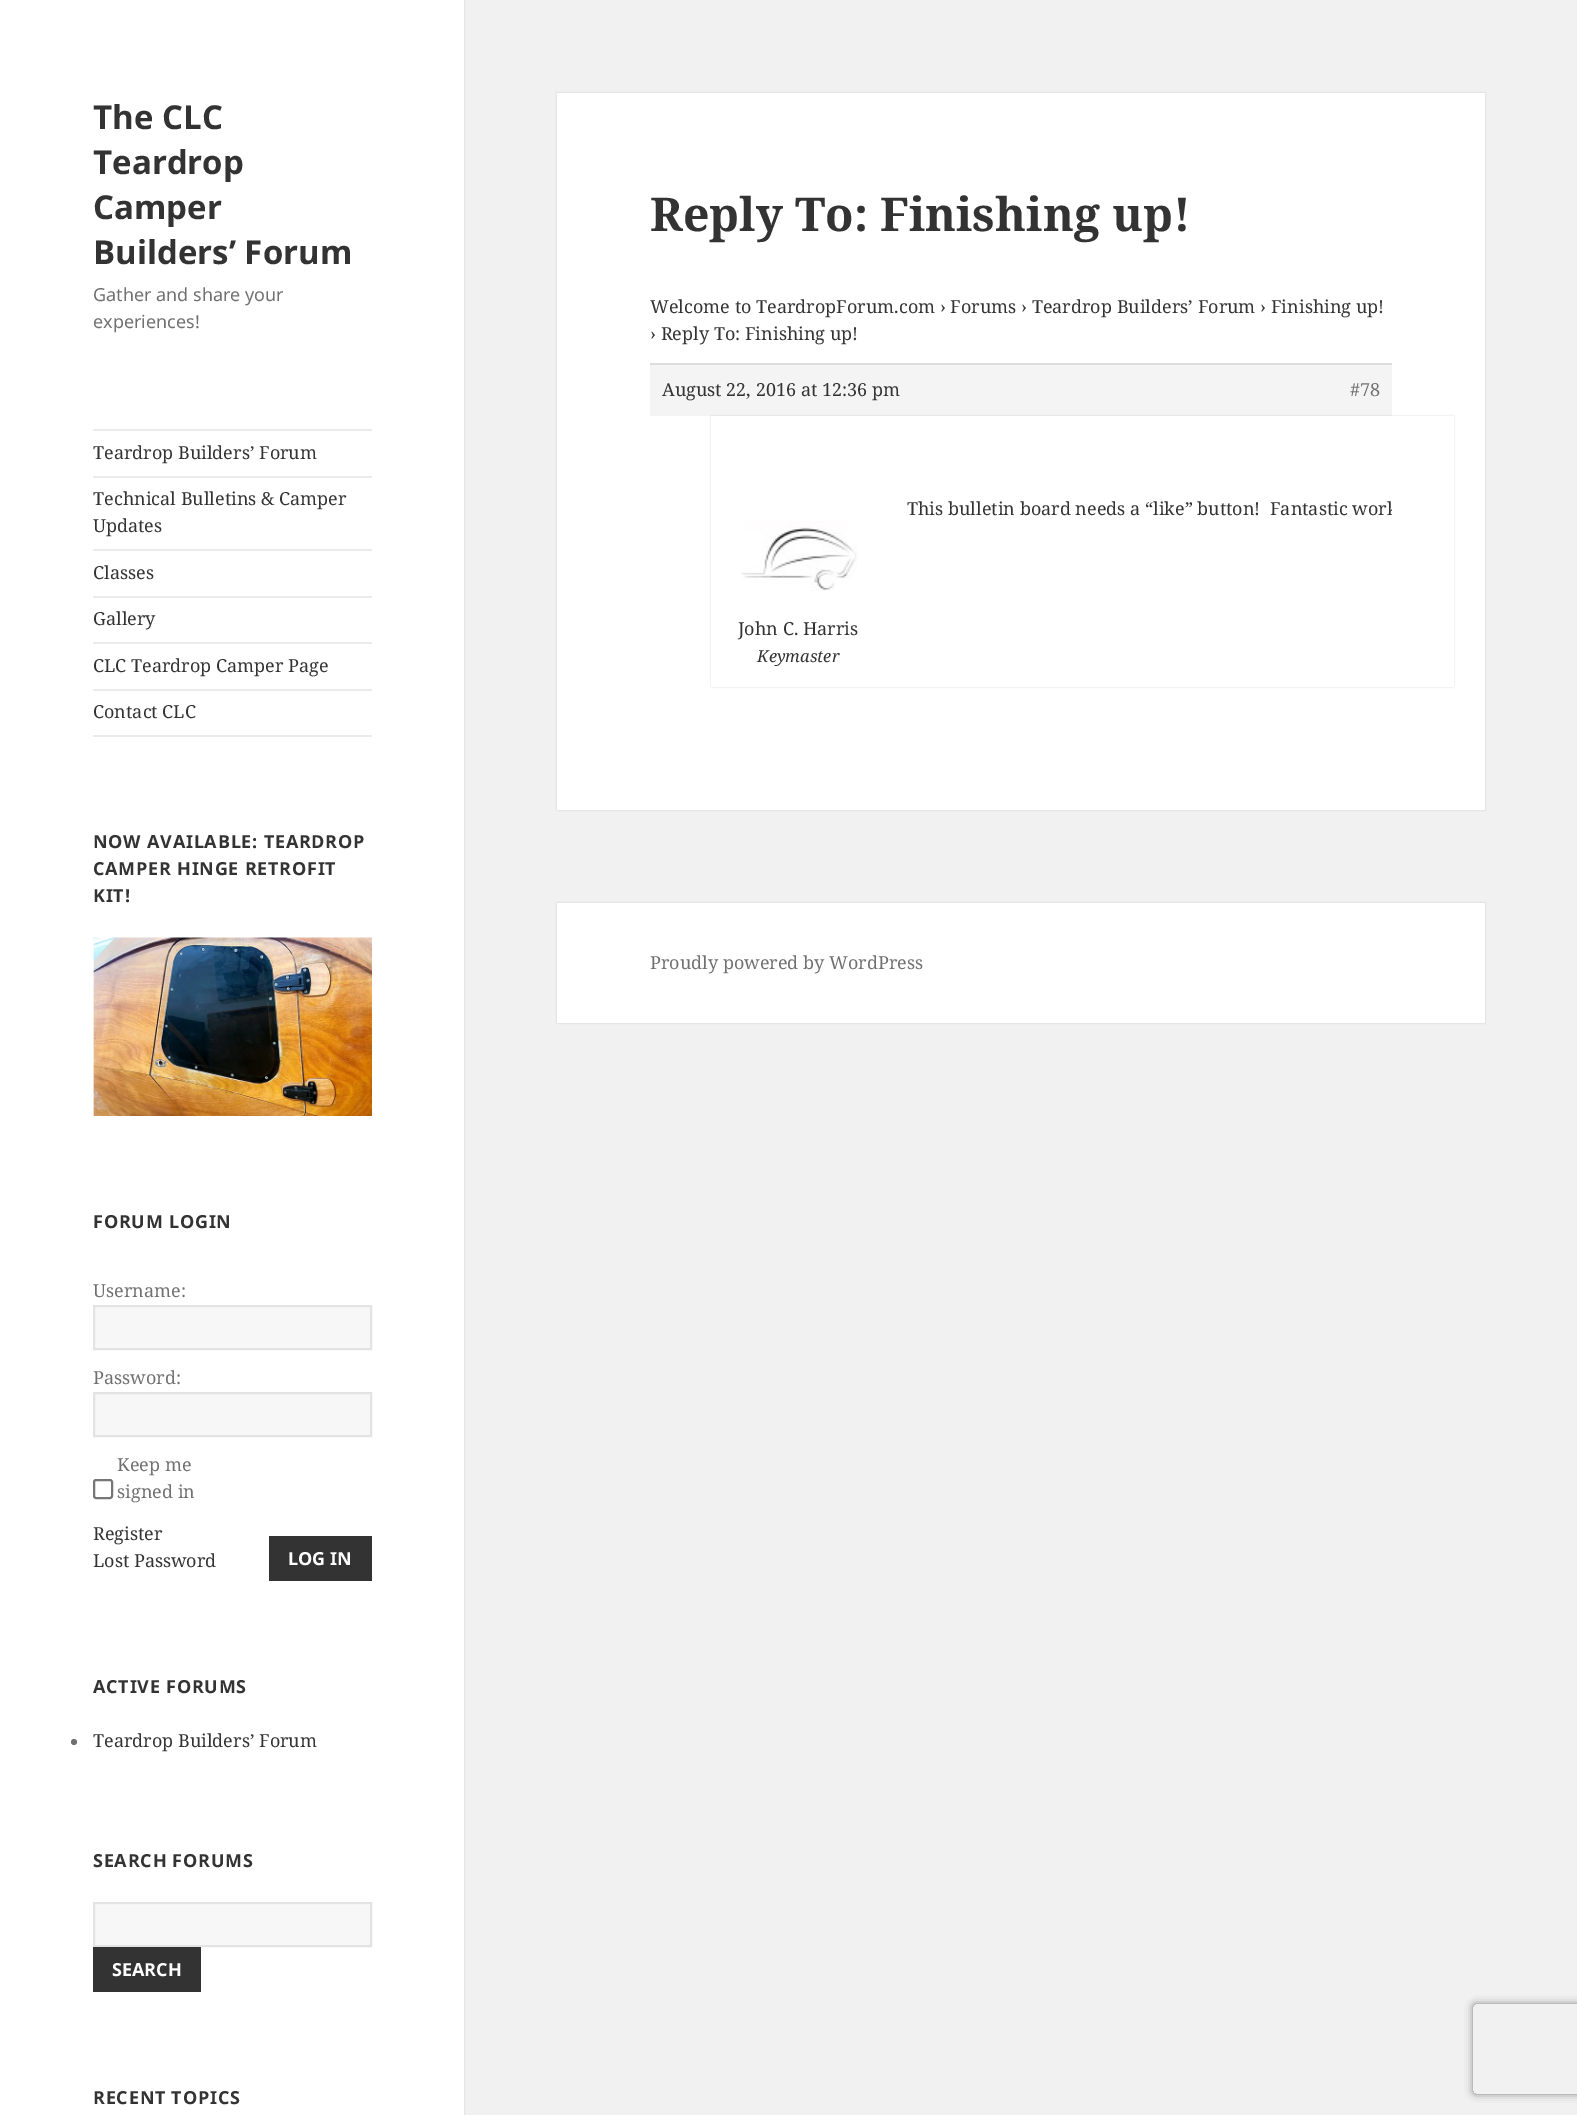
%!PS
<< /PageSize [1577 2115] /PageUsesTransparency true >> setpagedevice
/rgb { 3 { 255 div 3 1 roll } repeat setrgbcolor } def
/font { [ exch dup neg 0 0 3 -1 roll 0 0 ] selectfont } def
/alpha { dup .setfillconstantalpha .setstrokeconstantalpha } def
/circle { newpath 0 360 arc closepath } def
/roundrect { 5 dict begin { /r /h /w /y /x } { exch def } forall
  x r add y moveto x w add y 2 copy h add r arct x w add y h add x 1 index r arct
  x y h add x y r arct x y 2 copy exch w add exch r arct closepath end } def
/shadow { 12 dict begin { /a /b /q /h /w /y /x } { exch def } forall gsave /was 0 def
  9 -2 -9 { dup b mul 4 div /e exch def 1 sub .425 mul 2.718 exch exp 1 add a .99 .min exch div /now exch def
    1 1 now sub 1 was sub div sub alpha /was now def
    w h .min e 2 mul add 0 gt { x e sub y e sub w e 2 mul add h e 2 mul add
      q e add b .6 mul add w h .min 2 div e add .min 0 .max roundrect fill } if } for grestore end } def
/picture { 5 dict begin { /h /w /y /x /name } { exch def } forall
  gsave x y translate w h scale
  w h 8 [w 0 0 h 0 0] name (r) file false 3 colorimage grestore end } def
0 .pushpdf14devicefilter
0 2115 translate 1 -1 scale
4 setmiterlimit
241 241 241 rgb
0 0 1577 2115 rectfill
0 0 0 rgb
0 0 464 2115 0 1 0.15 shadow
[
  [0 0 464 2115 255 255 255]
  [93 429 279 2 235 235 235]
  [93 735 279 2 235 235 235]
  [93 476 279 2 235 235 235]
  [93 549 279 2 235 235 235]
  [93 596 279 2 235 235 235]
  [93 642 279 2 235 235 235]
  [93 689 279 2 235 235 235]
] { aload pop rgb rectfill } forall
(img/1.rgb) 93 937 279 179 picture
247 247 247 rgb
94 1306 moveto 371 1306 lineto 371 1349 lineto 94 1349 lineto closepath gsave fill grestore
227 227 227 rgb
2 setlinewidth
stroke
247 247 247 rgb
94 1393 moveto 371 1393 lineto 371 1436 lineto 94 1436 lineto closepath gsave fill grestore
227 227 227 rgb
stroke
118 118 118 rgb
94 1480 18 18 2 roundrect stroke
51 51 51 rgb
269 1536 103 45 rectfill
112 112 112 rgb
74 1742 3 circle fill
247 247 247 rgb
94 1903 moveto 371 1903 lineto 371 1946 lineto 94 1946 lineto closepath gsave fill grestore
227 227 227 rgb
stroke
51 51 51 rgb
93 1947 108 45 rectfill
0 0 0 rgb
557 93 928 717 0 1 0.15 shadow
[
  [557 93 928 717 255 255 255]
  [650 365 742 51 244 244 244]
  [650 363 742 2 221 221 221]
] { aload pop rgb rectfill } forall
gsave
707 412 moveto 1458 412 lineto 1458 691 lineto 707 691 lineto closepath 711 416 moveto 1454 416 lineto 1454 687 lineto 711 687 lineto closepath eoclip newpath
0 0 0 rgb
711 416 743 271 0 1 0.15 shadow
grestore
(img/2.rgb) 741 521 117 70 picture
0 0 0 rgb
557 903 928 120 0 1 0.15 shadow
255 255 255 rgb
557 903 928 120 rectfill
gsave
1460 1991 moveto 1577 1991 lineto 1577 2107 lineto 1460 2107 lineto closepath 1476 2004 moveto 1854 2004 lineto 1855.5 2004 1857 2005.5 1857 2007 curveto 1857 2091 lineto 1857 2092.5 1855.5 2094 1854 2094 curveto 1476 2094 lineto 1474.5 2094 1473 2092.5 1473 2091 curveto 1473 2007 lineto 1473 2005.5 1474.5 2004 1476 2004 curveto closepath eoclip newpath
128 128 128 rgb
1473 2004 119 90 3 4 1 shadow
grestore
/NotoSans-Bold 33 font
51 51 51 rgb
[
  [(The CLC) 93 129]
  [(Teardrop) 93 174]
  [(Camper) 93 219]
  [(Builders’ Forum) 93 264]
] { aload pop moveto show } forall
/NotoSans-Regular 18 font
112 112 112 rgb
93 301 moveto (Gather and share your) show
93 328 moveto (experiences!) show
/NotoSerif-Regular 18 font
51 51 51 rgb
[
  [(Teardrop Builders’ Forum) 93 459]
  [(Technical Bulletins & Camper) 93 505]
  [(Updates) 93 532]
  [(Classes) 93 579]
  [(Gallery) 93 625]
  [(CLC Teardrop Camper Page) 93 672]
  [(Contact CLC) 93 718]
] { aload pop moveto show } forall
/NotoSans-Bold 18 font
93 848 moveto 0.75 0 (NOW AVAILABLE: TEARDROP) ashow
93 875 moveto 0.75 0 (CAMPER HINGE RETROFIT) ashow
93 902 moveto 0.75 0 (KIT!) ashow
93 1228 moveto 0.75 0 (FORUM LOGIN) ashow
/NotoSerif-Regular 18 font
112 112 112 rgb
[
  [(Username:) 93 1297]
  [(Password:) 93 1384]
  [(Keep me) 117 1471]
  [(signed in) 117 1498]
] { aload pop moveto show } forall
51 51 51 rgb
93 1540 moveto (Register) show
93 1567 moveto (Lost Password) show
/NotoSans-Bold 18 font
255 255 255 rgb
288 1565 moveto (LOG IN) show
51 51 51 rgb
93 1693 moveto 0.75 0 (ACTIVE FORUMS) ashow
/NotoSerif-Regular 18 font
93 1747 moveto (Teardrop Builders’ Forum) show
/NotoSans-Bold 18 font
93 1867 moveto 0.75 0 (SEARCH FORUMS) ashow
255 255 255 rgb
112 1976 moveto (SEARCH) show
51 51 51 rgb
93 2104 moveto 0.75 0 (RECENT TOPICS) ashow
/NotoSerif-Bold 46.5 font
650 231 moveto (Reply To: Finishing up!) show
/NotoSerif-Regular 18 font
[
  [(Welcome to TeardropForum.com › Forums › Teardrop Builders’ Forum › Finishing up!) 650 313]
  [(› Reply To: Finishing up!) 650 340]
  [(August 22, 2016 at 12:36 pm) 662 396]
] { aload pop moveto show } forall
112 112 112 rgb
1350 396 moveto (#78) show
gsave
650 294 742 393 rectclip
51 51 51 rgb
907 515 moveto (This bulletin board needs a “like” button!  Fantastic work) show
grestore
51 51 51 rgb
738 635 moveto (John C. Harris) show
/NotoSerif-Italic 16.5 font
757 662 moveto (Keymaster) show
/NotoSerif-Regular 18 font
112 112 112 rgb
650 969 moveto (Proudly powered by WordPress) show
.poppdf14devicefilter showpage
